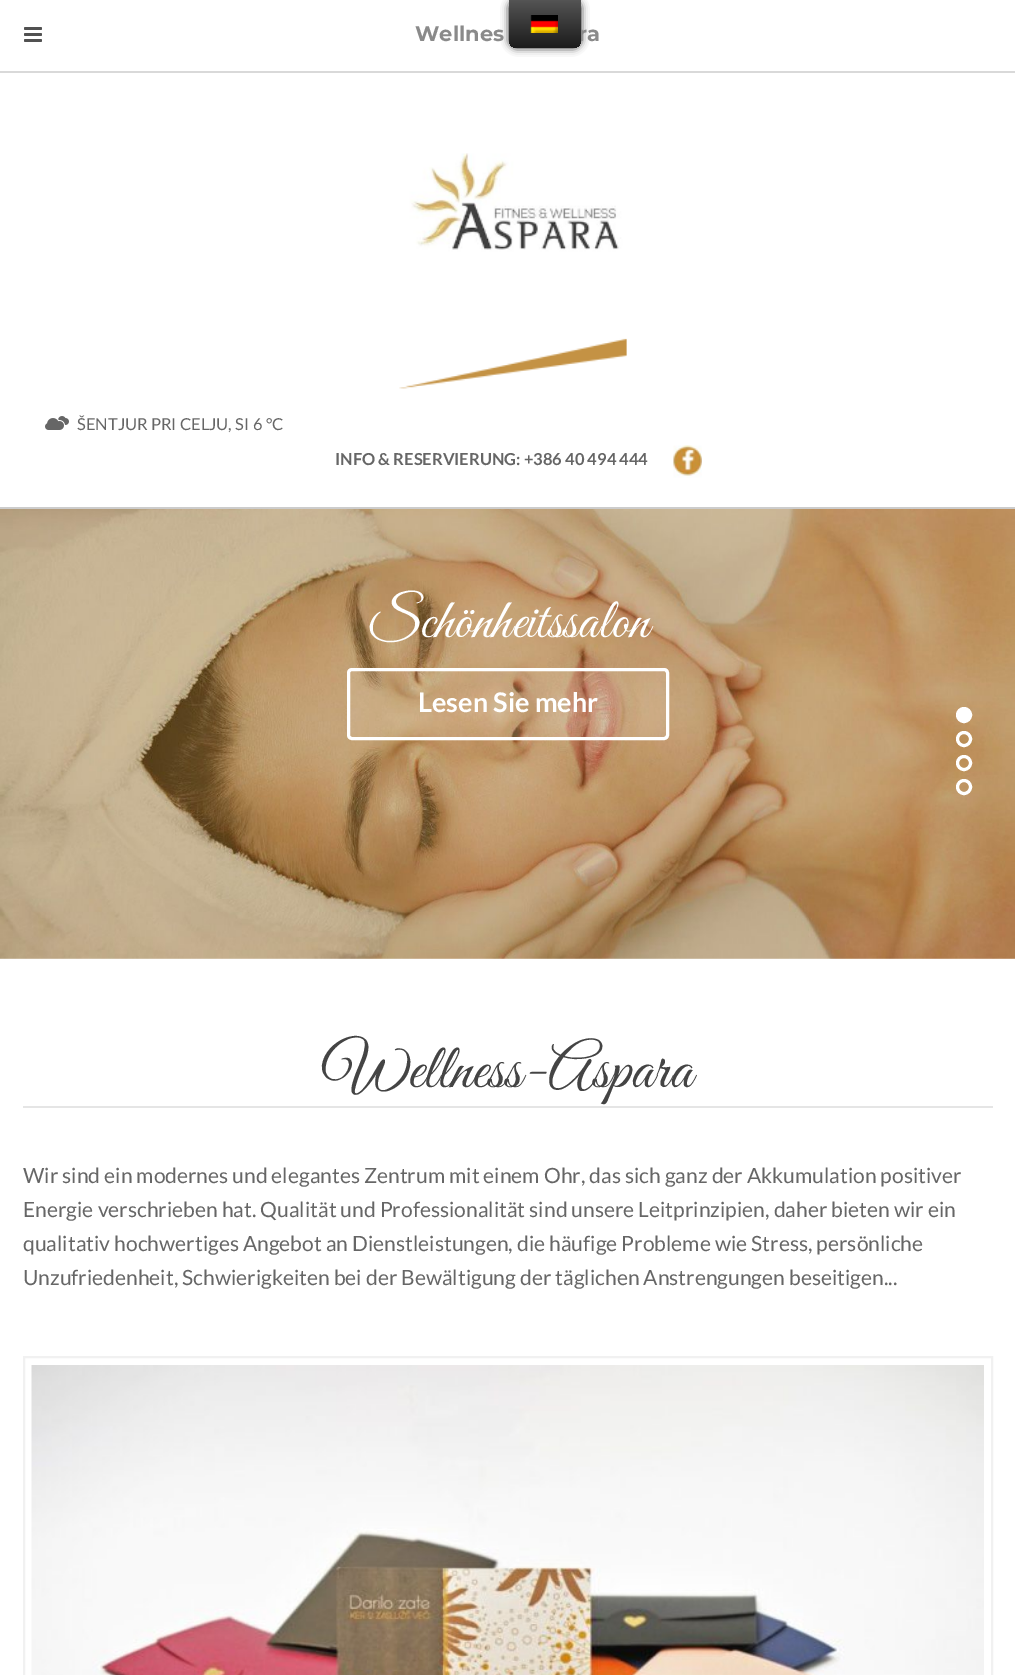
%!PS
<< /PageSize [1015 1675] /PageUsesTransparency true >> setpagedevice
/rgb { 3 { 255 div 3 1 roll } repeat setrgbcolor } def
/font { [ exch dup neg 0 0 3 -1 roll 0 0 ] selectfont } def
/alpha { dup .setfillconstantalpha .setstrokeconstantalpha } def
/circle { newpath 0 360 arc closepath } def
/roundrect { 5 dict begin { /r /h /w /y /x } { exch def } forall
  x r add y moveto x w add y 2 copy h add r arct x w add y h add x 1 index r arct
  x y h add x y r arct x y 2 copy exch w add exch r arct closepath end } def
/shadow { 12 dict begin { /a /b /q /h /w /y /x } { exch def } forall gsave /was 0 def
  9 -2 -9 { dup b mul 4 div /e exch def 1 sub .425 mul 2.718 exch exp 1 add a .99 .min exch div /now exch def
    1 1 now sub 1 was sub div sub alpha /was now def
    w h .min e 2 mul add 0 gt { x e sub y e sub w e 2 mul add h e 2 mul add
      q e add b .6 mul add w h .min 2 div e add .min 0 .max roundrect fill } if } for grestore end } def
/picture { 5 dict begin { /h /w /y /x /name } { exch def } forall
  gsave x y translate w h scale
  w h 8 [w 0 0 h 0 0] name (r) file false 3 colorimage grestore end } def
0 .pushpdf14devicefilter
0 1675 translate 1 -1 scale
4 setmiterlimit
255 255 255 rgb
0 0 1015 1675 rectfill
33 33 33 rgb
509 0 72 48 8 4 1 shadow
217 217 217 rgb
0 71 1015 2 rectfill
(img/2.rgb) 24 27 18 15 picture
204 204 204 rgb
0 507 1015 2 rectfill
(img/3.rgb) 399 153 228 236 picture
(img/4.rgb) 45 416 24 14 picture
(img/5.rgb) 673 445 29 33 picture
(img/6.rgb) 0 509 1015 450 picture
0.1 alpha
255 255 255 rgb
348.5 669.5 319 69 3.5 roundrect fill
1 alpha
3 setlinewidth
348.5 669.5 319 69 3.5 roundrect stroke
964 715 6.5 circle gsave fill grestore
stroke
964 739 6.5 circle stroke
964 763 6.5 circle stroke
964 787 6.5 circle stroke
229 229 229 rgb
23 1106 970 2 rectfill
241 241 241 rgb
2 setlinewidth
24 1357 968 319 rectstroke
(img/7.rgb) 31 1365 953 310 picture
/Montserrat-Bold 21 font
138 138 138 rgb
415 41 moveto (Wellnes) show
578 41 moveto (ra) show
gsave 509 0 moveto 581 0 lineto 581 40 lineto 581 44.5 577.5 48 573 48 curveto 517 48 lineto 512.5 48 509 44.5 509 40 curveto closepath clip newpath
<< /ShadingType 2 /ColorSpace /DeviceRGB /Coords [545 48 545 0] /Extend [true true] /Function << /FunctionType 2 /Domain [0 1] /C0 [0.106 0.106 0.106] /C1 [0.329 0.329 0.329] /N 1 >> >> shfill grestore
(img/1.rgb) 530 15 28 18 picture
/Lato-Regular 16.5 font
102 102 102 rgb
77 430 moveto (ŠENTJUR PRI CELJU, SI) show
253 430 moveto (6 °C) show
/Lato-Bold 16.5 font
335 465 moveto (INFO & RESERVIERUNG: +386 40 494 444) show
/GreatVibes-Regular 57 font
255 255 255 rgb
367 637 moveto (Schönheitssalon) show
/Lato-Bold 27 font
418 712 moveto (Lesen Sie mehr) show
/GreatVibes-Regular 63 font
68 68 68 rgb
323 1087 moveto (Wellness-Aspara) show
/Lato-Regular 21 font
102 102 102 rgb
[
  [(Wir sind ein modernes und elegantes Zentrum mit einem Ohr, das sich ganz der Akkumulation positiver) 23 1183]
  [(Energie verschrieben hat. Qualität und Professionalität sind unsere Leitprinzipien, daher bieten wir ein) 23 1217]
  [(qualitativ hochwertiges Angebot an Dienstleistungen, die häufige Probleme wie Stress, persönliche) 23 1251]
  [(Unzufriedenheit, Schwierigkeiten bei der Bewältigung der täglichen Anstrengungen beseitigen...) 23 1285]
] { aload pop moveto show } forall
.poppdf14devicefilter showpage
